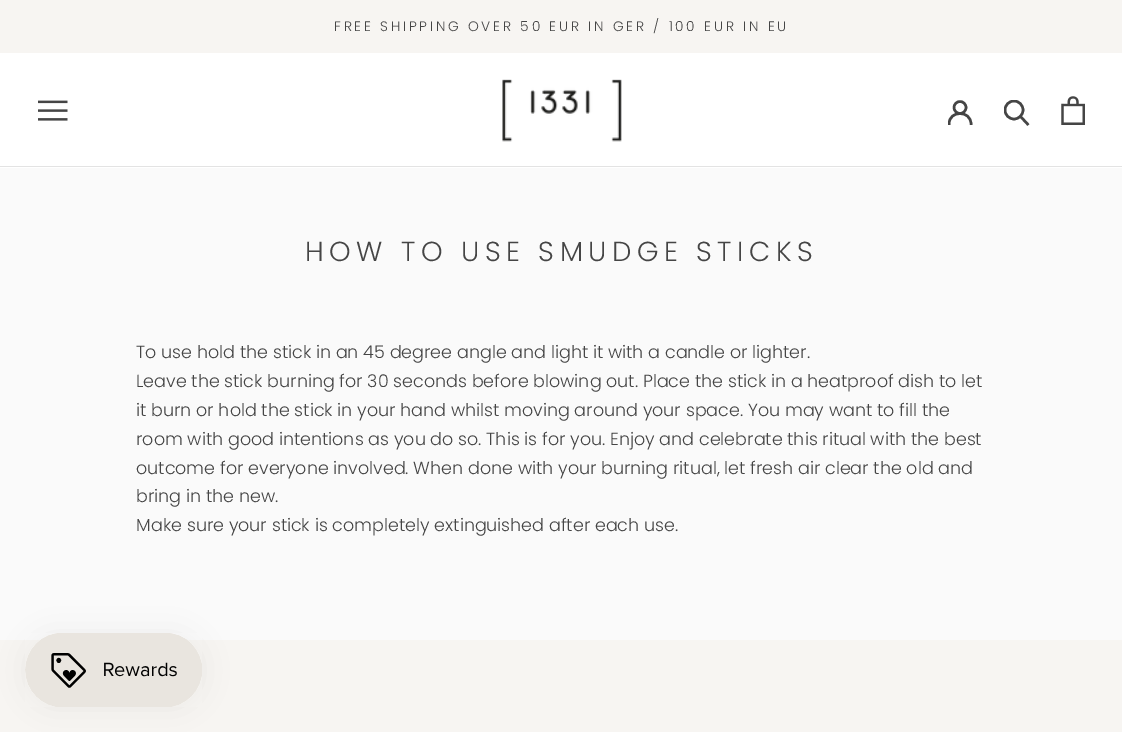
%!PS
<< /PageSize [1122 732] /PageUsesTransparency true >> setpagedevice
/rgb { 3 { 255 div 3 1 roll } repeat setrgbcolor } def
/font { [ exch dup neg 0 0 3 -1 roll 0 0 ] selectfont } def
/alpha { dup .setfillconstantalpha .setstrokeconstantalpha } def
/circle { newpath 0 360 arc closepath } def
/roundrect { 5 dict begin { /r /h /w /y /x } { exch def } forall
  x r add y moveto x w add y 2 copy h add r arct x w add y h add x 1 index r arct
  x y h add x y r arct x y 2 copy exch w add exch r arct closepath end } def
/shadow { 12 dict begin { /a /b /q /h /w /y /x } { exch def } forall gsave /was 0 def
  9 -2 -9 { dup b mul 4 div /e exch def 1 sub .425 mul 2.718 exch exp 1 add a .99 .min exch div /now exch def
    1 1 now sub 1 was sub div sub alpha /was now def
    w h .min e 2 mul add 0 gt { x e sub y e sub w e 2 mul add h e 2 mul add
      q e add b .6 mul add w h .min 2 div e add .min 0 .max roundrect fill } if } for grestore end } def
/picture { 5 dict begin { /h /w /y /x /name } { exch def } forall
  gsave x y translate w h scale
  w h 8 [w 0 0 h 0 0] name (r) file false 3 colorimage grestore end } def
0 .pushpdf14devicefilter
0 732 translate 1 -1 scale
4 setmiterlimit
250 250 250 rgb
0 0 1122 732 rectfill
[
  [0 0 1122 53 247 245 242]
  [0 53 1122 115 255 255 255]
  [0 166 1122 1 227 227 227]
] { aload pop rgb rectfill } forall
(img/1.rgb) 38 100 30 21 picture
(img/2.rgb) 502 79 120 63 picture
gsave
948 100 25 25 rectclip
69 69 69 rgb
2.5 setlinewidth
2 setlinecap
949 124 moveto 949 110 971 110 971 124 curveto stroke
grestore
69 69 69 rgb
2.5 setlinewidth
960 107.5 6 circle stroke
2 setlinecap
1027.5 124 moveto 1020.5 116.5 lineto stroke
gsave
1004 100 26 26 rectclip
0 setlinecap
1014 110 9 circle stroke
grestore
(img/3.rgb) 1061 96 24 29 picture
247 245 242 rgb
0 640 1122 92 rectfill
0 0 0 rgb
25 633 178 75 37.5 15.5 0.05 shadow
(img/4.rgb) 25 633 177 74 picture
/Poppins-Light 13.75 font
69 69 69 rgb
334 31 moveto 2.75 0 (FREE SHIPPING OVER 50 EUR IN GER / 100 EUR IN EU) ashow
/Poppins-Light 27.5 font
305 261 moveto 5.5 0 (HOW TO USE SMUDGE STICKS) ashow
/Poppins-Light 17.5 font
[
  [(To use hold the stick in an 45 degree angle and light it with a candle or lighter.) 136 358]
  [(Leave the stick burning for 30 seconds before blowing out. Place the stick in a heatproof dish to let) 136 387]
  [(it burn or hold the stick in your hand whilst moving around your space. You may want to fill the) 136 416]
  [(room with good intentions as you do so. This is for you. Enjoy and celebrate this ritual with the best) 136 445]
  [(outcome for everyone involved. When done with your burning ritual, let fresh air clear the old and) 136 474]
  [(bring in the new.) 136 502]
  [(Make sure your stick is completely extinguished after each use.) 136 531]
] { aload pop moveto show } forall
.poppdf14devicefilter showpage
